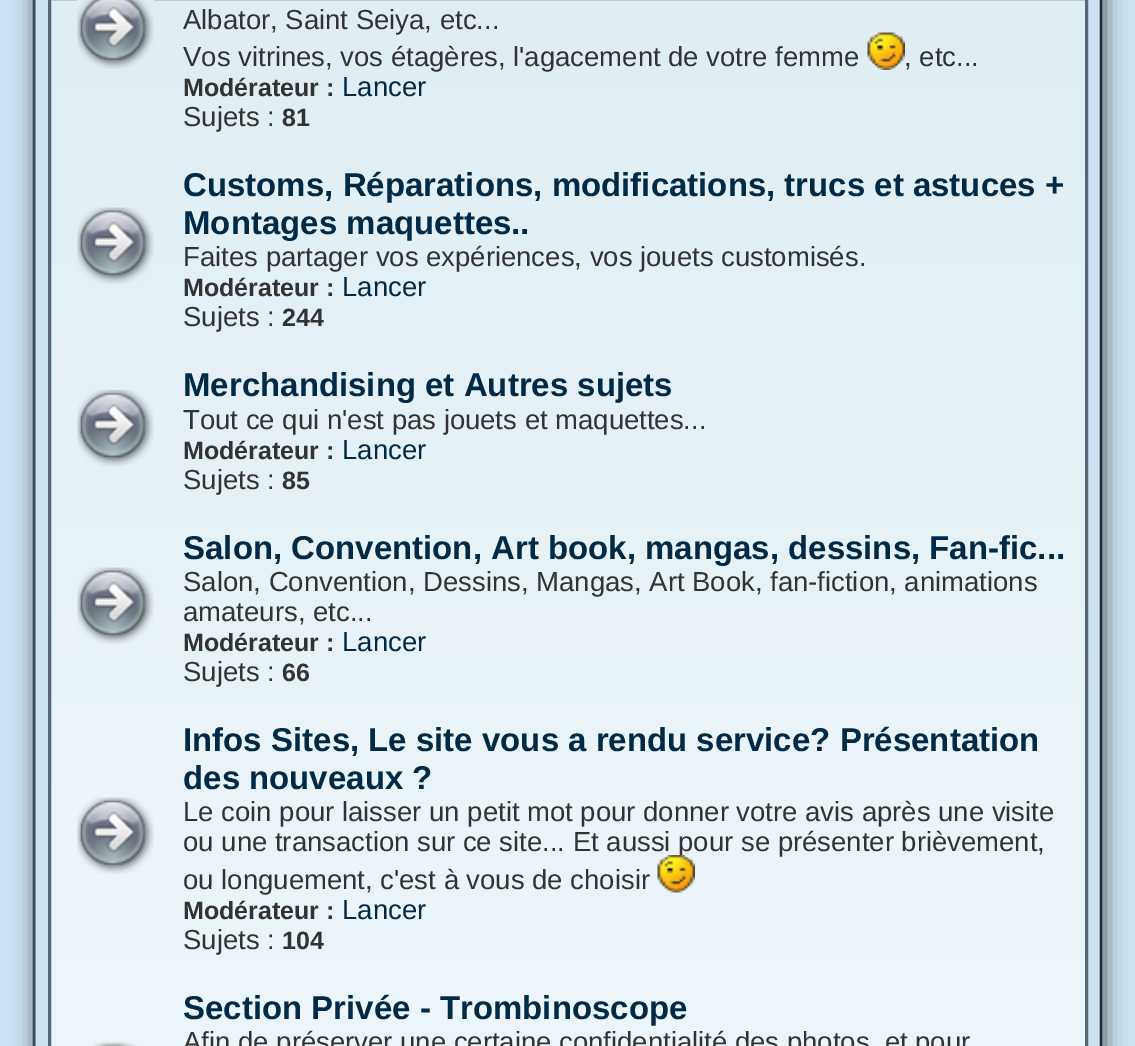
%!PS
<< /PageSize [1135 1046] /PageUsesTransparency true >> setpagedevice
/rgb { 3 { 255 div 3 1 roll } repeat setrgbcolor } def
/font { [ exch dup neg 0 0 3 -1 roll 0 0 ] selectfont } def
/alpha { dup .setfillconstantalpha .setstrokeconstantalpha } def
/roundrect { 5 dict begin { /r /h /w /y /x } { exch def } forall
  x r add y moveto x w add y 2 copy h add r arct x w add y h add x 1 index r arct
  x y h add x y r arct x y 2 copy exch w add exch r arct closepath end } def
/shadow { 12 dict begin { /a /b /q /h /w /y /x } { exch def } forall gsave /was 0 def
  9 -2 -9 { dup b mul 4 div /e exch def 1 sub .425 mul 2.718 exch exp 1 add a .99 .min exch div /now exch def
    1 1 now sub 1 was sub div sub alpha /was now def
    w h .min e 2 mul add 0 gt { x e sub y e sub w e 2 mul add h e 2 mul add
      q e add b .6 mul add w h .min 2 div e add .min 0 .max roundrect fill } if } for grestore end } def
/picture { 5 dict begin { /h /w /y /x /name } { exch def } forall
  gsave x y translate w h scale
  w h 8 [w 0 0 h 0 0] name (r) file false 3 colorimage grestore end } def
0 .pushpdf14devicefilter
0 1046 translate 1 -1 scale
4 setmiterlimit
204 227 243 rgb
0 0 1135 1046 rectfill
gsave
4 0 moveto 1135 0 lineto 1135 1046 lineto 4 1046 lineto closepath 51 -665 moveto 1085 -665 lineto 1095 -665 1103 -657 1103 -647 curveto 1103 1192 lineto 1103 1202 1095 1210 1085 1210 curveto 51 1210 lineto 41 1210 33 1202 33 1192 curveto 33 -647 lineto 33 -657 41 -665 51 -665 curveto closepath eoclip newpath
85 85 85 rgb
35 -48 1070 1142 18 10 1 shadow
grestore
33 41 48 rgb
2.5 setlinewidth
1096.5 -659 moveto 1099.5 -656 1101 -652 1101 -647.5 curveto 1101 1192.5 lineto 1101 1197 1099.5 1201 1096.5 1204 curveto stroke
58 73 85 rgb
38.5 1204 moveto 35.5 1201 34 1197 34 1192.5 curveto 34 -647.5 lineto 34 -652 35.5 -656 38.5 -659 curveto stroke
gsave 51 0 moveto 1085 0 lineto 1085 1046 lineto 51 1046 lineto closepath clip newpath
<< /ShadingType 2 /ColorSpace /DeviceRGB /Coords [567 -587 568 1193] /Extend [true true] /Function << /FunctionType 2 /Domain [0 1] /C0 [0.851 0.918 0.945] /C1 [0.937 0.969 0.984] /N 1 >> >> shfill grestore
86 104 119 rgb
3 setlinewidth
49.5 -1.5 1037 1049 rectstroke
(img/1.rgb) 77 0 77 69 picture
(img/2.rgb) 867 32 38 38 picture
(img/3.rgb) 77 207 77 77 picture
(img/4.rgb) 77 390 77 77 picture
(img/5.rgb) 77 567 77 77 picture
(img/6.rgb) 77 797 77 77 picture
(img/8.rgb) 92 1042 45 4 picture
/LiberationSans-Regular 27.5 font
51 51 51 rgb
[
  [(Albator, Saint Seiya, etc...) 183 29]
  [(Vos vitrines, vos étagères, l'agacement de votre femme) 183 66]
  [(, etc...) 904 66]
] { aload pop moveto show } forall
/LiberationSans-Bold 25 font
183 96 moveto (Modérateur :) show
/LiberationSans-Regular 27.5 font
0 42 70 rgb
342 96 moveto (Lancer) show
51 51 51 rgb
183 126 moveto (Sujets :) show
/LiberationSans-Bold 25 font
282 126 moveto (81) show
/LiberationSans-Bold 33 font
0 42 70 rgb
183 196 moveto (Customs, Réparations, modifications, trucs et astuces +) show
183 234 moveto (Montages maquettes..) show
/LiberationSans-Regular 27.5 font
51 51 51 rgb
183 266 moveto (Faites partager vos expériences, vos jouets customisés.) show
/LiberationSans-Bold 25 font
183 296 moveto (Modérateur :) show
/LiberationSans-Regular 27.5 font
0 42 70 rgb
342 296 moveto (Lancer) show
51 51 51 rgb
183 326 moveto (Sujets :) show
/LiberationSans-Bold 25 font
282 326 moveto (244) show
/LiberationSans-Bold 33 font
0 42 70 rgb
183 396 moveto (Merchandising et Autres sujets) show
/LiberationSans-Regular 27.5 font
51 51 51 rgb
183 429 moveto (Tout ce qui n'est pas jouets et maquettes...) show
/LiberationSans-Bold 25 font
183 459 moveto (Modérateur :) show
/LiberationSans-Regular 27.5 font
0 42 70 rgb
342 459 moveto (Lancer) show
51 51 51 rgb
183 489 moveto (Sujets :) show
/LiberationSans-Bold 25 font
282 489 moveto (85) show
/LiberationSans-Bold 33 font
0 42 70 rgb
183 559 moveto (Salon, Convention, Art book, mangas, dessins, Fan-fic...) show
/LiberationSans-Regular 27.5 font
51 51 51 rgb
183 591 moveto (Salon, Convention, Dessins, Mangas, Art Book, fan-fiction, animations) show
183 621 moveto (amateurs, etc...) show
/LiberationSans-Bold 25 font
183 651 moveto (Modérateur :) show
/LiberationSans-Regular 27.5 font
0 42 70 rgb
342 651 moveto (Lancer) show
51 51 51 rgb
183 681 moveto (Sujets :) show
/LiberationSans-Bold 25 font
282 681 moveto (66) show
/LiberationSans-Bold 33 font
0 42 70 rgb
183 751 moveto (Infos Sites, Le site vous a rendu service? Présentation) show
183 789 moveto (des nouveaux ?) show
/LiberationSans-Regular 27.5 font
51 51 51 rgb
[
  [(Le coin pour laisser un petit mot pour donner votre avis après une visite) 183 821]
  [(ou une transaction sur ce site... Et aussi pour se présenter brièvement,) 183 851]
  [(ou longuement, c'est à vous de choisir) 183 889]
] { aload pop moveto show } forall
(img/7.rgb) 657 855 38 38 picture
/LiberationSans-Bold 25 font
183 919 moveto (Modérateur :) show
/LiberationSans-Regular 27.5 font
0 42 70 rgb
342 919 moveto (Lancer) show
51 51 51 rgb
183 949 moveto (Sujets :) show
/LiberationSans-Bold 25 font
282 949 moveto (104) show
/LiberationSans-Bold 33 font
0 42 70 rgb
183 1019 moveto (Section Privée - Trombinoscope) show
/LiberationSans-Regular 27.5 font
51 51 51 rgb
183 1051 moveto (Afin de préserver une certaine confidentialité des photos, et pour) show
.poppdf14devicefilter showpage
